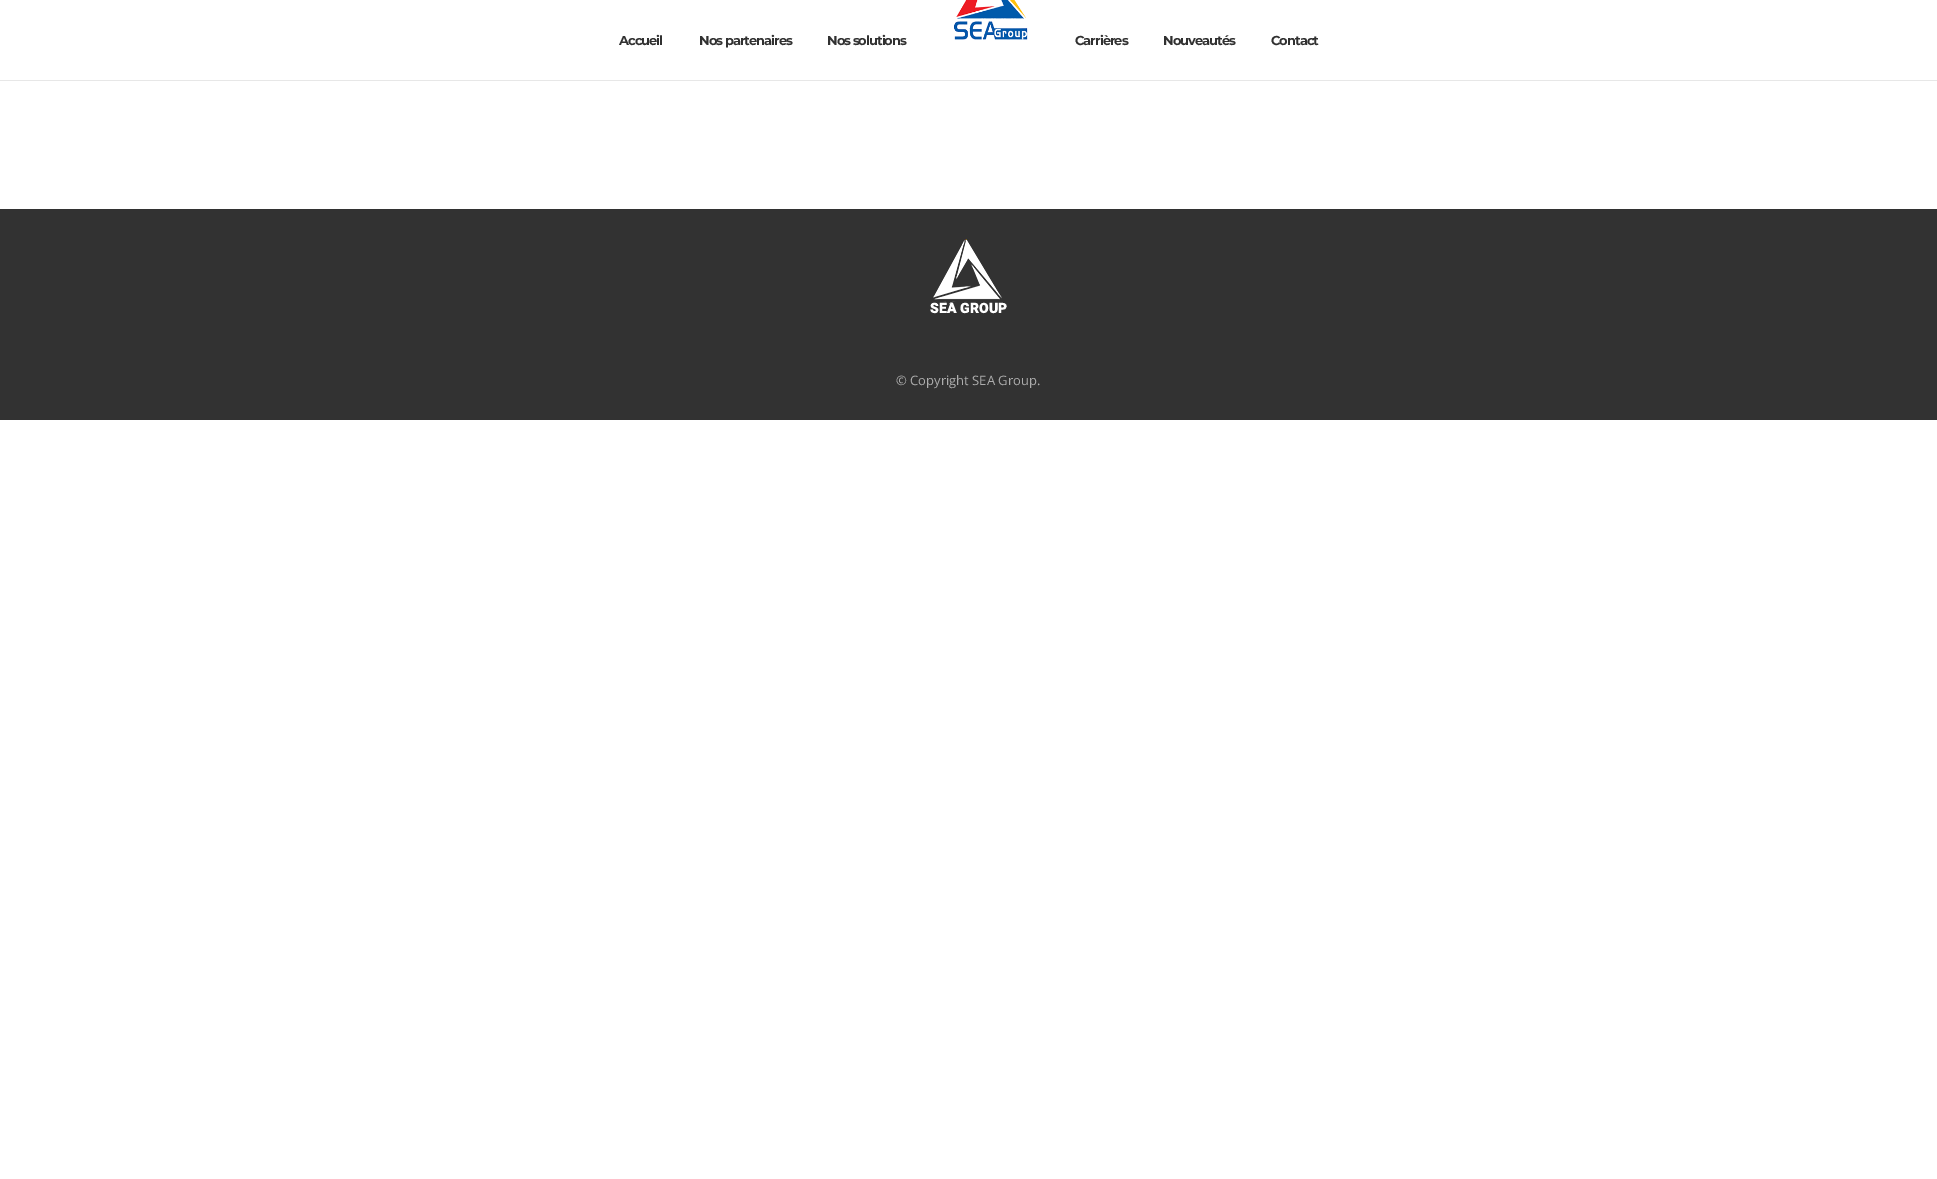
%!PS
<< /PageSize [1937 1179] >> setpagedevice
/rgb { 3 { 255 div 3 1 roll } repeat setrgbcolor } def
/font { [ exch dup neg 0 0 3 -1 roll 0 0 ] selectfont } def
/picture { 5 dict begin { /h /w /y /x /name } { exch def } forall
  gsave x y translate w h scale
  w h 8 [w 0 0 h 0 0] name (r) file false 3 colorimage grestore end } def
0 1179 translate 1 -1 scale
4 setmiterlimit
255 255 255 rgb
0 0 1937 1179 rectfill
231 231 231 rgb
0 80 1937 1 rectfill
(img/1.rgb) 954 0 74 40 picture
50 50 50 rgb
0 209 1937 211 rectfill
(img/2.rgb) 930 239 77 75 picture
/Montserrat-Bold 13 font
49 49 49 rgb
619 45 moveto -1 0 (Accueil) ashow
699 45 moveto -1 0 (Nos partenaires) ashow
827 45 moveto -1 0 (Nos solutions) ashow
1075 45 moveto -1 0 (Carrières) ashow
1163 45 moveto -1 0 (Nouveautés) ashow
1271 45 moveto -1 0 (Contact) ashow
/OpenSans-Regular 13 font
173 173 173 rgb
896 385 moveto (© Copyright SEA Group.) show
showpage
